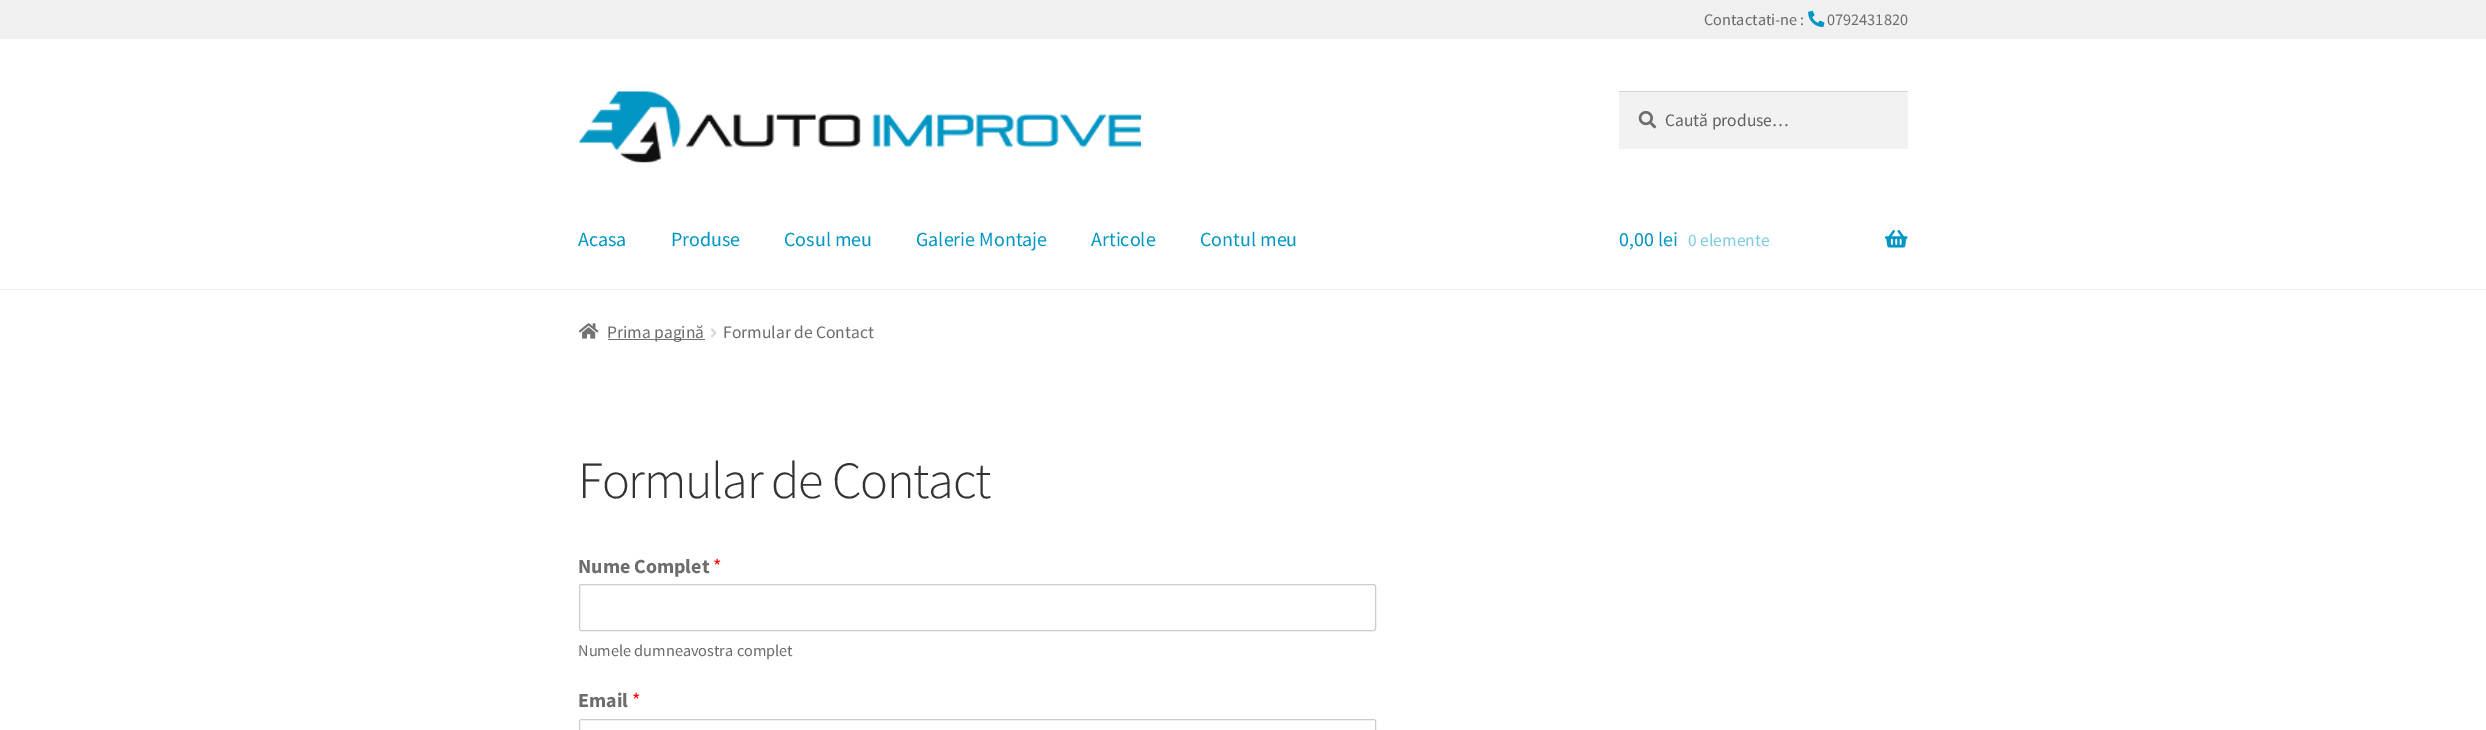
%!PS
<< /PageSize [2486 730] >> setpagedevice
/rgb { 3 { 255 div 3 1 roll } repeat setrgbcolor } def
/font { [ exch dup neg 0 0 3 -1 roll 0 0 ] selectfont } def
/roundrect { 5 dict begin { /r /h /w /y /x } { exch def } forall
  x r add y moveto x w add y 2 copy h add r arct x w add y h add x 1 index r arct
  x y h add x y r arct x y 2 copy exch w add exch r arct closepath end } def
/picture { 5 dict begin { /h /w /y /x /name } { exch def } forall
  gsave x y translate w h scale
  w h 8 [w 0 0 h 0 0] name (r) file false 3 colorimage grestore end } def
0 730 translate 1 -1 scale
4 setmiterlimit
255 255 255 rgb
0 0 2486 730 rectfill
240 240 240 rgb
0 0 2486 39 rectfill
(img/1.rgb) 1808 10 17 17 picture
0 289 2486 1 rectfill
(img/2.rgb) 578 91 564 72 picture
242 242 242 rgb
1619 92 289 57 rectfill
(img/3.rgb) 1638 110 19 19 picture
212 212 212 rgb
1619 91 289 1 rectfill
(img/4.rgb) 1885 230 23 18 picture
(img/5.rgb) 578 323 21 16 picture
114 114 114 rgb
608 339 97 1 rectfill
(img/6.rgb) 710 328 7 10 picture
204 204 204 rgb
579.5 584.5 796 46 2 roundrect stroke
579.5 719.5 796 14 2 roundrect stroke
/SourceSansPro-Regular 16.25 font
109 109 109 rgb
1704 25 moveto (Contactati-ne :) show
1827 25 moveto (0792431820) show
/SourceSansPro-Regular 17.5 font
97 97 97 rgb
1665 126 moveto (Caută produse…) show
/SourceSansPro-Regular 20 font
0 150 195 rgb
[
  [(Acasa) 578 246]
  [(Produse) 671 246]
  [(Cosul meu) 784 246]
  [(Galerie Montaje) 916 246]
  [(Articole) 1091 246]
  [(Contul meu) 1200 246]
  [(0,00 lei) 1619 246]
] { aload pop moveto show } forall
/SourceSansPro-Regular 17.5 font
128 203 225 rgb
1688 246 moveto (0 elemente) show
109 109 109 rgb
607 338 moveto (Prima pagină) show
723 338 moveto (Formular de Contact) show
/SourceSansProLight-Light 52.25 font
51 51 51 rgb
578 498 moveto -1.25 0 (Formular de Contact) ashow
/SourceSansPro-Bold 20 font
109 109 109 rgb
578 573 moveto (Nume Complet) show
/SourceSansPro-Regular 20 font
255 0 0 rgb
713 573 moveto (*) show
/SourceSansPro-Regular 16.25 font
109 109 109 rgb
578 656 moveto (Numele dumneavostra complet) show
/SourceSansPro-Bold 20 font
578 707 moveto (Email) show
/SourceSansPro-Regular 20 font
255 0 0 rgb
632 707 moveto (*) show
showpage
